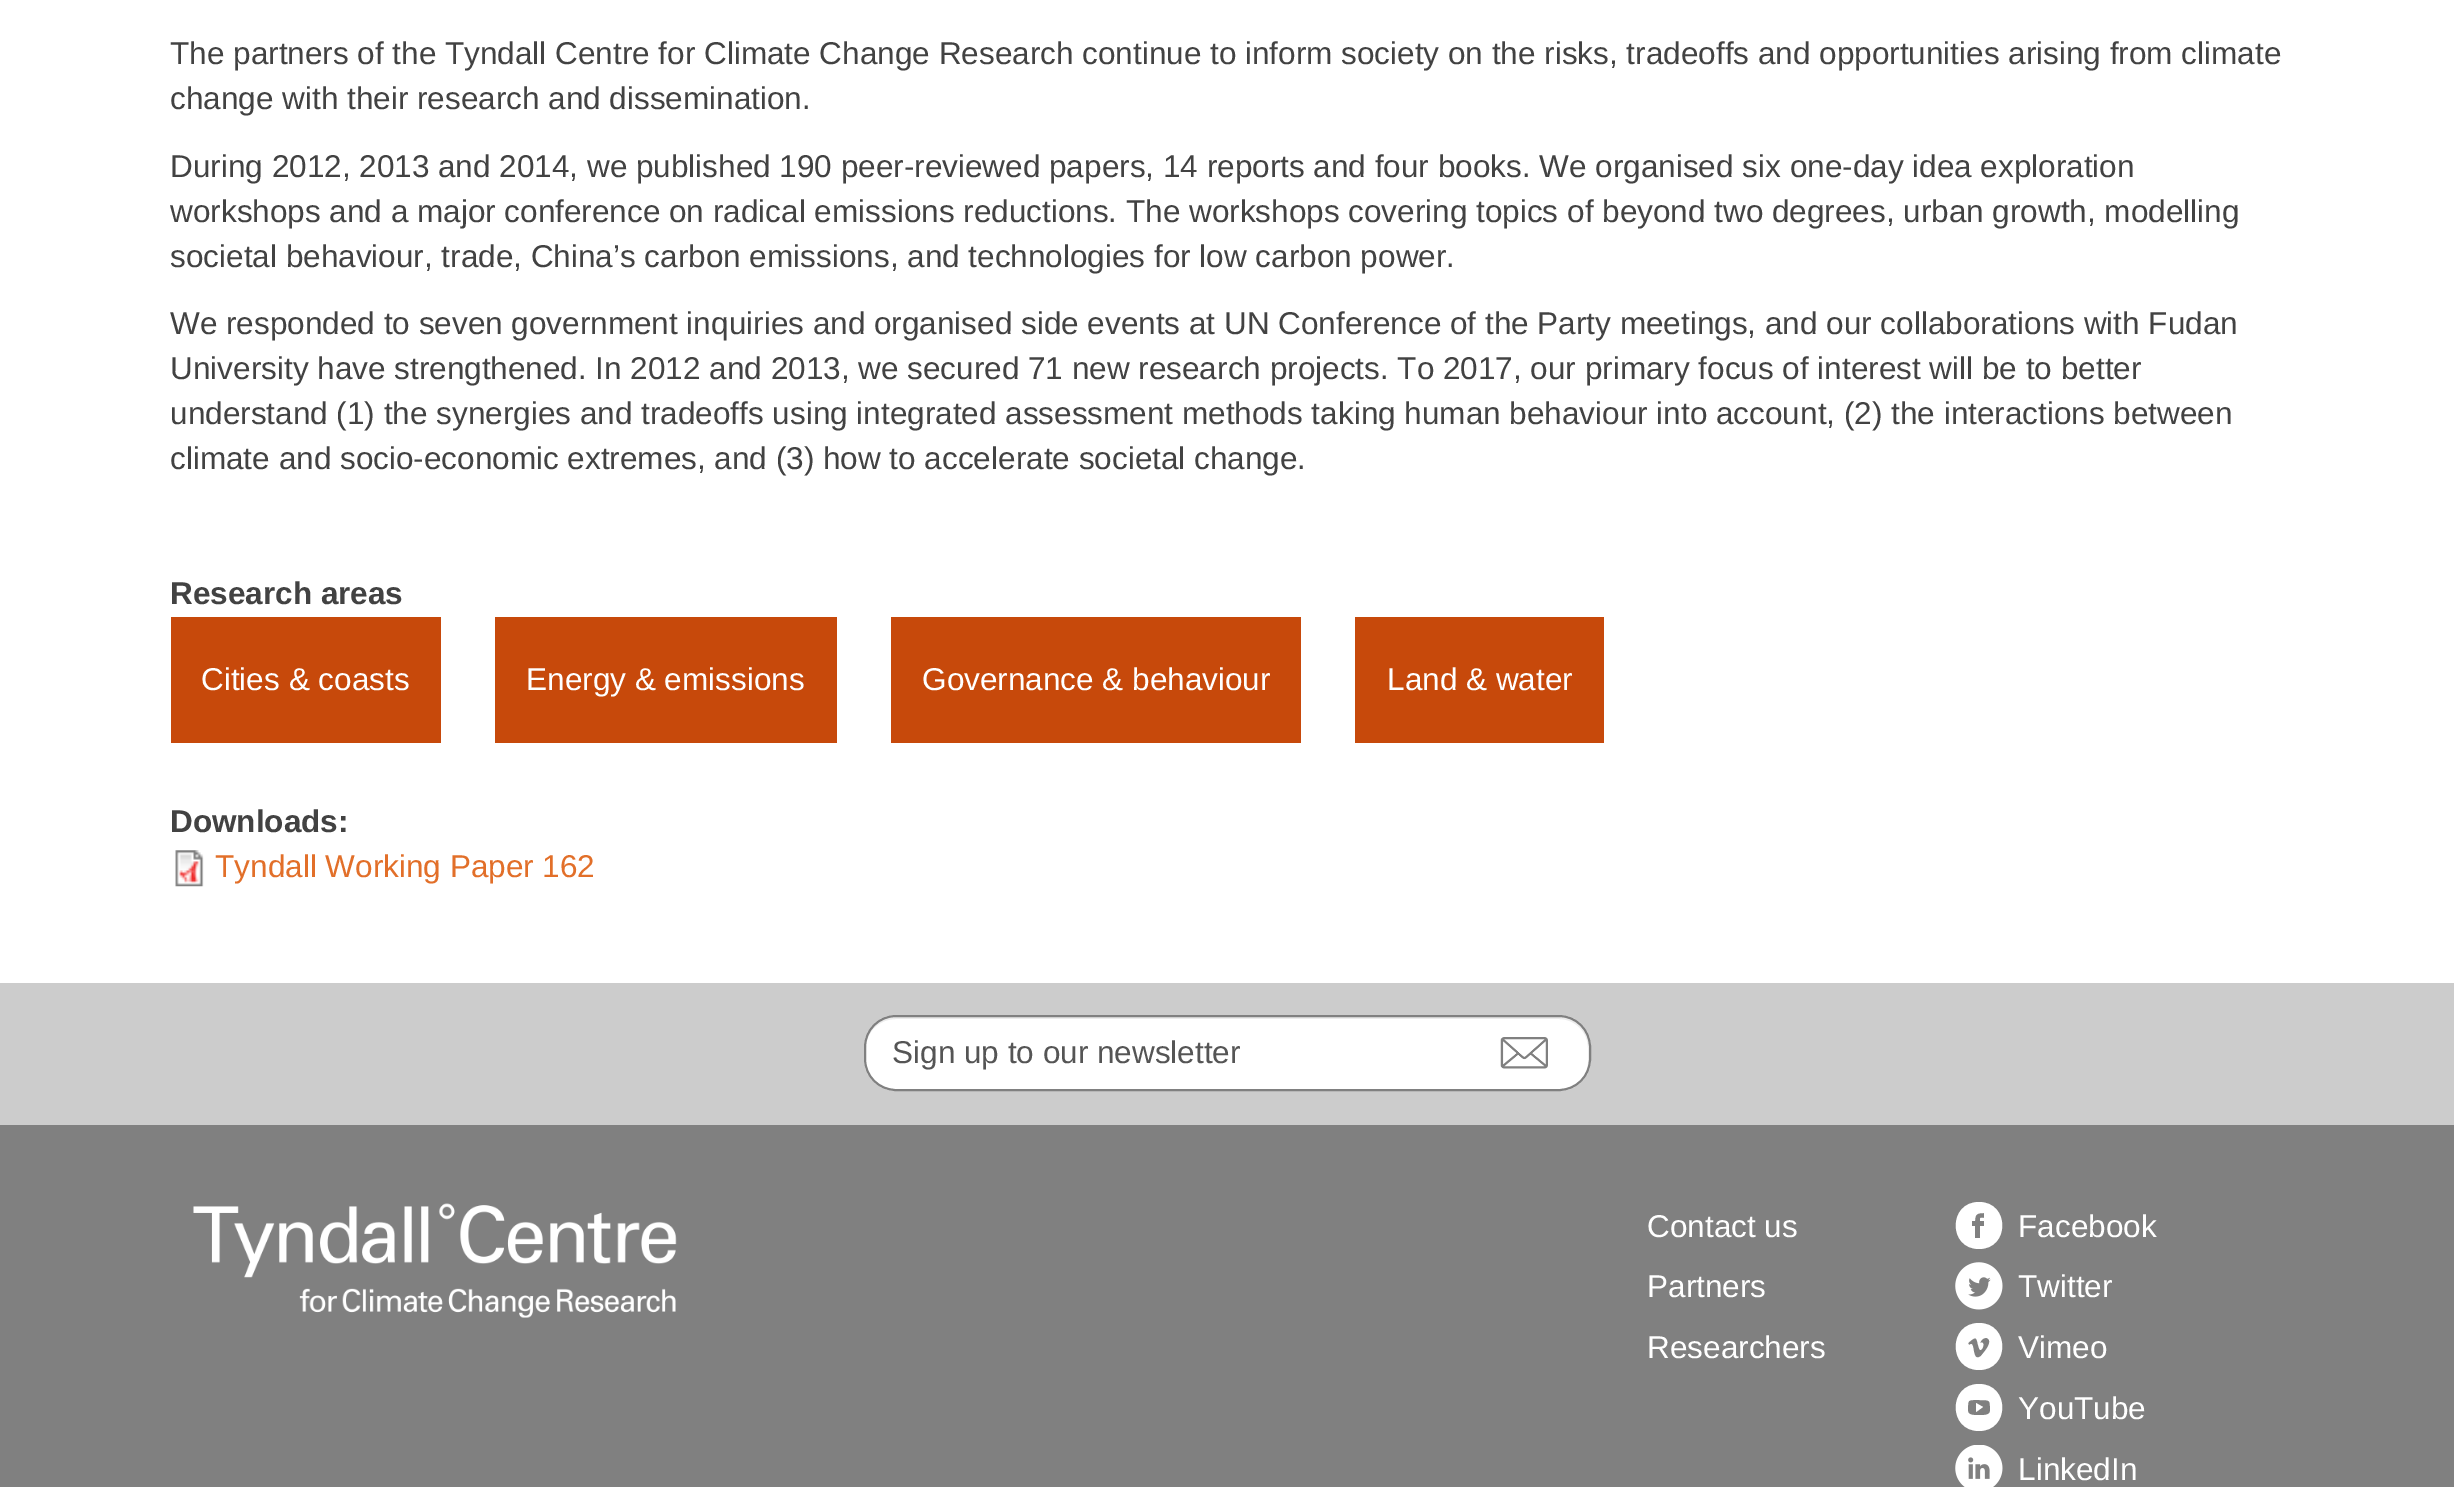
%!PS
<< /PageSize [2454 1487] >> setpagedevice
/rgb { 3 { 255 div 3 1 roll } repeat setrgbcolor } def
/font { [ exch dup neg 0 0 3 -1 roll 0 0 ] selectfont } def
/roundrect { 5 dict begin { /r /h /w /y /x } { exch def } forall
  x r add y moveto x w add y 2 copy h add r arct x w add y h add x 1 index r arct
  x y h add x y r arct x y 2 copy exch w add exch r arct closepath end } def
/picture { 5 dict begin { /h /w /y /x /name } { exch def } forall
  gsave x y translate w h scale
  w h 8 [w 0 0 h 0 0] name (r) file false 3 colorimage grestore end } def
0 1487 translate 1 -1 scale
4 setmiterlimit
255 255 255 rgb
0 0 2454 1487 rectfill
[
  [171 617 270 126 199 73 11]
  [495 617 342 126 199 73 11]
  [891 617 410 126 199 73 11]
  [1355 617 249 126 199 73 11]
] { aload pop rgb rectfill } forall
(img/1.rgb) 175 850 29 37 picture
204 204 204 rgb
0 983 2454 142 rectfill
255 255 255 rgb
864 1015 727 76 32 roundrect fill
(img/2.rgb) 1500 1037 48 32 picture
236 236 236 rgb
896 1019 moveto 1559 1019 lineto 1575 1019 1588 1032 1588 1048 curveto 1588 1062 lineto 1588 1066 1587 1070 1585 1074 curveto 1588 1070 1589 1065 1589 1060 curveto 1589 1046 lineto 1589 1030 1576 1017 1560 1017 curveto 895 1017 lineto 879 1017 866 1030 866 1046 curveto 866 1048 lineto 866 1032 879 1019 896 1019 curveto closepath fill
128 128 128 rgb
2 setlinewidth
865 1016 725 74 31 roundrect stroke
0 1125 2454 362 rectfill
(img/3.rgb) 193 1203 484 115 picture
255 255 255 rgb
1979 1249 moveto 2010 1249 2010 1202 1979 1202 curveto 1948 1202 1948 1249 1979 1249 curveto closepath 1975 1238 moveto 1975 1226 lineto 1972 1226 lineto 1972 1221 lineto 1975 1221 lineto 1975 1214 1977 1213 1984 1213 curveto 1984 1218 lineto 1980 1218 1980 1217 1980 1221 curveto 1984 1221 lineto 1984 1226 lineto 1980 1226 lineto 1980 1238 lineto closepath eofill
(img/4.rgb) 1955 1262 48 48 picture
1979 1370 moveto 2010 1370 2010 1323 1979 1323 curveto 1948 1323 1948 1370 1979 1370 curveto closepath 1985 1351 moveto 1981 1356 lineto 1972 1363 1975 1344 1971 1344 curveto 1969 1345 lineto 1968 1343 lineto 1978 1334 1976 1339 1979 1348 curveto 1981 1355 1987 1340 1980 1343 curveto 1983 1334 1996 1337 1985 1351 curveto closepath eofill
1979 1431 moveto 2010 1431 2010 1384 1979 1384 curveto 1948 1384 1948 1431 1979 1431 curveto closepath 1990 1411 moveto 1990 1400 1991 1400 1979 1400 curveto 1967 1400 1968 1399 1968 1411 curveto 1968 1416 1976 1415 1979 1415 curveto 1982 1415 1990 1416 1990 1411 curveto closepath 1983 1407 moveto 1976 1412 lineto 1976 1403 lineto closepath eofill
(img/5.rgb) 1955 1445 48 42 picture
/LiberationSans-Regular 31.5 font
66 66 66 rgb
[
  [(The partners of the Tyndall Centre for Climate Change Research continue to inform society on the risks, tradeoffs and opportunities arising from climate) 170 64]
  [(change with their research and dissemination.) 170 109]
  [(During 2012, 2013 and 2014, we published 190 peer-reviewed papers, 14 reports and four books. We organised six one-day idea exploration) 170 177]
  [(workshops and a major conference on radical emissions reductions. The workshops covering topics of beyond two degrees, urban growth, modelling) 170 222]
  [(societal behaviour, trade, China’s carbon emissions, and technologies for low carbon power.) 170 267]
  [(We responded to seven government inquiries and organised side events at UN Conference of the Party meetings, and our collaborations with Fudan) 170 334]
  [(University have strengthened. In 2012 and 2013, we secured 71 new research projects. To 2017, our primary focus of interest will be to better) 170 379]
  [(understand \(1\) the synergies and tradeoffs using integrated assessment methods taking human behaviour into account, \(2\) the interactions between) 170 424]
  [(climate and socio-economic extremes, and \(3\) how to accelerate societal change.) 170 469]
] { aload pop moveto show } forall
/LiberationSans-Bold 31.5 font
170 604 moveto (Research areas) show
/LiberationSans-Regular 31.5 font
255 255 255 rgb
[
  [(Cities & coasts) 201 690]
  [(Energy & emissions) 526 690]
  [(Governance & behaviour) 922 690]
  [(Land & water) 1387 690]
] { aload pop moveto show } forall
/LiberationSans-Bold 31.5 font
66 66 66 rgb
170 832 moveto (Downloads:) show
/LiberationSans-Regular 31.5 font
226 111 41 rgb
215 877 moveto (Tyndall Working Paper 162) show
85 85 85 rgb
892 1063 moveto (Sign up to our newsletter) show
255 255 255 rgb
[
  [(Contact us) 1647 1237]
  [(Partners) 1647 1297]
  [(Researchers) 1647 1358]
  [(Facebook) 2018 1237]
  [(Twitter) 2018 1297]
  [(Vimeo) 2018 1358]
  [(YouTube) 2018 1419]
  [(LinkedIn) 2018 1480]
] { aload pop moveto show } forall
showpage
